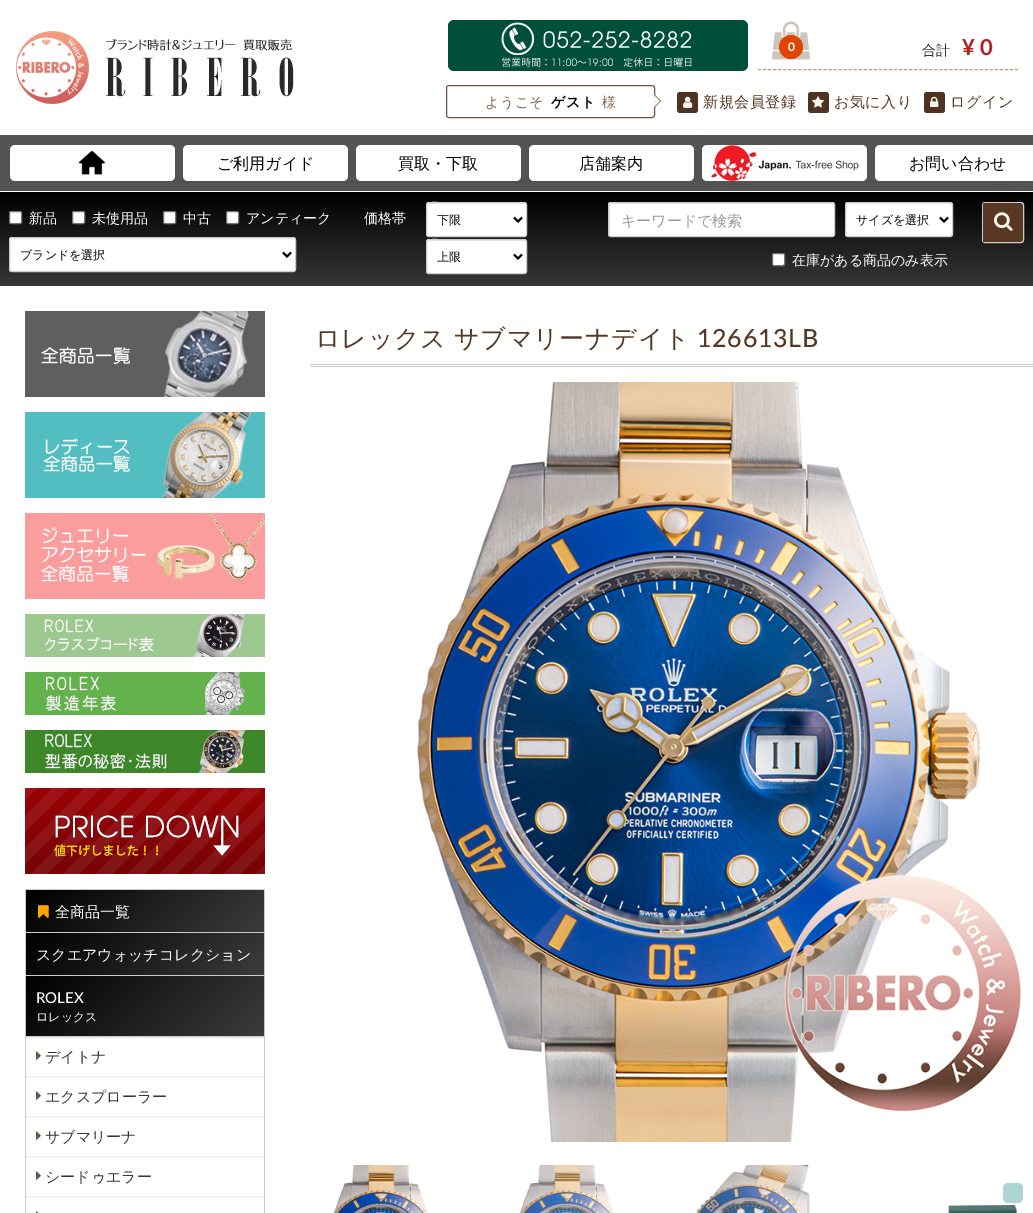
%!PS
<< /PageSize [1033 1213] /PageUsesTransparency true >> setpagedevice
/rgb { 3 { 255 div 3 1 roll } repeat setrgbcolor } def
/font { [ exch dup neg 0 0 3 -1 roll 0 0 ] selectfont } def
/alpha { dup .setfillconstantalpha .setstrokeconstantalpha } def
/circle { newpath 0 360 arc closepath } def
/roundrect { 5 dict begin { /r /h /w /y /x } { exch def } forall
  x r add y moveto x w add y 2 copy h add r arct x w add y h add x 1 index r arct
  x y h add x y r arct x y 2 copy exch w add exch r arct closepath end } def
/shadow { 12 dict begin { /a /b /q /h /w /y /x } { exch def } forall gsave /was 0 def
  9 -2 -9 { dup b mul 4 div /e exch def 1 sub .425 mul 2.718 exch exp 1 add a .99 .min exch div /now exch def
    1 1 now sub 1 was sub div sub alpha /was now def
    w h .min e 2 mul add 0 gt { x e sub y e sub w e 2 mul add h e 2 mul add
      q e add b .6 mul add w h .min 2 div e add .min 0 .max roundrect fill } if } for grestore end } def
/picture { 5 dict begin { /h /w /y /x /name } { exch def } forall
  gsave x y translate w h scale
  w h 8 [w 0 0 h 0 0] name (r) file false 3 colorimage grestore end } def
0 .pushpdf14devicefilter
0 1213 translate 1 -1 scale
4 setmiterlimit
255 255 255 rgb
0 0 1033 1213 rectfill
(img/1.rgb) 16 31 278 73 picture
0 79 57 rgb
448 20 300 51 6 roundrect fill
(img/2.rgb) 501 22 191 45 picture
196 154 106 rgb
[3 2.04] 0 setdash
758 69.5 moveto 1018 69.5 lineto stroke
(img/3.rgb) 772 21 38 39 picture
224 70 2 rgb
791 47 12 circle fill
112 84 68 rgb
[] 0 setdash
446.5 85.5 208 32 2.5 roundrect stroke
654 108 moveto 654 94 lineto 661 101 lineto closepath fill
246 245 240 rgb
653 108 moveto 653 94 lineto 660 101 lineto closepath fill
79 51 34 rgb
677 92 21 21 3 roundrect fill
(img/4.rgb) 683 96 10 12 picture
808 92 21 21 3 roundrect fill
(img/5.rgb) 812 96 12 12 picture
924 92 21 21 3 roundrect fill
(img/6.rgb) 930 96 9 11 picture
83 83 83 rgb
0 135 1033 56 rectfill
255 255 255 rgb
10 145 165 36 5 roundrect fill
(img/7.rgb) 79 150 26 25 picture
183 145 165 36 5 roundrect fill
356 145 165 36 5 roundrect fill
529 145 165 36 5 roundrect fill
702 145 165 36 5 roundrect fill
(img/8.rgb) 711 145 148 36 picture
875 145 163 36 5 roundrect fill
gsave 0 192 moveto 1033 192 lineto 1033 286 lineto 0 286 lineto closepath clip newpath
<< /ShadingType 2 /ColorSpace /DeviceRGB /Coords [517 192 517 286] /Extend [true true] /Function << /FunctionType 2 /Domain [0 1] /C0 [0 0 0] /C1 [0.216 0.216 0.216] /N 1 >> >> shfill grestore
9.5 211.5 12 12 1.5 roundrect gsave fill grestore
118 118 118 rgb
stroke
255 255 255 rgb
72.5 211.5 12 12 1.5 roundrect gsave fill grestore
118 118 118 rgb
stroke
255 255 255 rgb
163.5 211.5 12 12 1.5 roundrect gsave fill grestore
118 118 118 rgb
stroke
255 255 255 rgb
226.5 211.5 12 12 1.5 roundrect gsave fill grestore
118 118 118 rgb
stroke
255 255 255 rgb
9 237 287 35 3 roundrect fill
236 236 236 rgb
12 239 moveto 293 239 lineto 294 239 295 240 295 241 curveto 295 240 295 238 293 238 curveto 12 238 lineto 10 238 10 240 10 241 curveto 10 240 11 239 12 239 curveto closepath fill
204 204 204 rgb
9.5 237.5 286 34 2.5 roundrect stroke
0 0 0 rgb
2 setlinewidth
283 252.5 moveto 287 256.5 lineto 291 252.5 lineto stroke
255 255 255 rgb
426 202 101 35 3 roundrect fill
236 236 236 rgb
429 204 moveto 524 204 lineto 525 204 526 205 526 206 curveto 526 205 526 203 524 203 curveto 445 203 lineto 443 203 427 199 427 206 curveto 427 205 428 204 429 204 curveto closepath fill
204 204 204 rgb
1 setlinewidth
426.5 202.5 100 34 2.5 roundrect stroke
0 0 0 rgb
2 setlinewidth
514 217.5 moveto 518 221.5 lineto 522 217.5 lineto stroke
255 255 255 rgb
426 239 101 35 3 roundrect fill
236 236 236 rgb
429 241 moveto 524 241 lineto 525 241 526 242 526 243 curveto 526 242 526 240 524 240 curveto 445 240 lineto 443 240 427 236 427 243 curveto 427 242 428 241 429 241 curveto closepath fill
204 204 204 rgb
1 setlinewidth
426.5 239.5 100 34 2.5 roundrect stroke
0 0 0 rgb
2 setlinewidth
514 254.5 moveto 518 258.5 lineto 522 254.5 lineto stroke
255 255 255 rgb
608 202 227 35 3 roundrect fill
230 230 230 rgb
612 204 moveto 834 204 lineto 832 203 lineto 611 203 lineto 610 204 lineto 609 205 lineto 609 235 lineto 610 236 lineto 610 211 lineto 610 210 609 204 612 204 curveto closepath fill
204 204 204 rgb
1 setlinewidth
608.5 202.5 226 34 2.5 roundrect stroke
255 255 255 rgb
845 202 108 35 3 roundrect fill
236 236 236 rgb
848 204 moveto 950 204 lineto 951 204 952 205 952 206 curveto 952 205 952 203 950 203 curveto 848 203 lineto 846 203 846 205 846 206 curveto 846 205 847 204 848 204 curveto closepath fill
204 204 204 rgb
845.5 202.5 107 34 2.5 roundrect stroke
0 0 0 rgb
2 setlinewidth
940 217.5 moveto 944 221.5 lineto 948 217.5 lineto stroke
255 255 255 rgb
772.5 253.5 12 12 1.5 roundrect gsave fill grestore
118 118 118 rgb
1 setlinewidth
stroke
255 255 255 rgb
982.5 202.5 41 40 2.5 roundrect gsave fill grestore
204 204 204 rgb
stroke
88 56 34 rgb
983 203 moveto 1020 203 lineto 1021.5 203 1023 204.5 1023 206 curveto 1023 239 lineto 1023 240.5 1021.5 242 1020 242 curveto 983 242 lineto closepath fill
(img/9.rgb) 994 212 19 19 picture
204 204 204 rgb
310 364 723 1 rectfill
310 366 723 1 rectfill
(img/10.rgb) 417 382 605 760 picture
(img/11.rgb) 333 1165 95 48 picture
(img/12.rgb) 519 1165 95 48 picture
(img/13.rgb) 696 1165 114 48 picture
(img/14.rgb) 948 1205 70 8 picture
(img/15.rgb) 25 311 240 86 picture
(img/16.rgb) 25 412 240 86 picture
(img/17.rgb) 25 513 240 86 picture
(img/18.rgb) 25 614 240 43 picture
(img/19.rgb) 25 672 240 43 picture
(img/20.rgb) 25 730 240 43 picture
(img/21.rgb) 25 788 240 86 picture
[
  [25 889 240 1 204 204 204]
  [264 889 1 324 204 204 204]
  [25 889 1 324 204 204 204]
] { aload pop rgb rectfill } forall
gsave 26 890 moveto 264 890 lineto 264 932 lineto 26 932 lineto closepath clip newpath
<< /ShadingType 2 /ColorSpace /DeviceRGB /Coords [75 841 215 981] /Extend [true true] /Function << /FunctionType 2 /Domain [0 1] /C0 [0 0 0] /C1 [0.235 0.235 0.235] /N 1 >> >> shfill grestore
26 932 238 1 rectfill
(img/22.rgb) 38 905 11 13 picture
gsave 26 933 moveto 264 933 lineto 264 975 lineto 26 975 lineto closepath clip newpath
<< /ShadingType 2 /ColorSpace /DeviceRGB /Coords [75 884 215 1024] /Extend [true true] /Function << /FunctionType 2 /Domain [0 1] /C0 [0 0 0] /C1 [0.235 0.235 0.235] /N 1 >> >> shfill grestore
26 975 238 1 rectfill
0 0 0 rgb
26 977 238 61 0 0.5 0.1 shadow
gsave 26 976 moveto 264 976 lineto 264 1036 lineto 26 1036 lineto closepath clip newpath
<< /ShadingType 2 /ColorSpace /DeviceRGB /Coords [70 932 220 1081] /Extend [true true] /Function << /FunctionType 2 /Domain [0 1] /C0 [0 0 0] /C1 [0.235 0.235 0.235] /N 1 >> >> shfill grestore
204 204 204 rgb
26 1036 238 1 rectfill
221 221 221 rgb
[1 1] 0 setdash
26 1076.5 moveto 264 1076.5 lineto stroke
(img/23.rgb) 36 1051 5 9 picture
26 1116.5 moveto 264 1116.5 lineto stroke
(img/23.rgb) 36 1091 5 9 picture
26 1156.5 moveto 264 1156.5 lineto stroke
(img/23.rgb) 36 1131 5 9 picture
26 1196.5 moveto 264 1196.5 lineto stroke
(img/23.rgb) 36 1171 5 9 picture
(img/24.rgb) 36 1211 3 2 picture
172 213 213 rgb
1003 1183 20 20 5 roundrect fill
/Lato-Bold 12 font
255 255 255 rgb
788 51 moveto (0) show
/WenQuanYiZenHei-Medium 14 font
51 51 51 rgb
922 55 moveto (合計) show
/Lato-Bold 22 font
178 34 34 rgb
962 55 moveto (¥ 0) show
/WenQuanYiZenHei-Medium 14 font
135 98 72 rgb
485 107 moveto 0.5 0 (ようこそ) ashow
/WenQuanYiZenHei-Bold 14 font
0 0 0 rgb
551 107 moveto 0.5 0 (ゲスト) ashow
/WenQuanYiZenHei-Medium 14 font
135 98 72 rgb
602 107 moveto 0.5 0 (様) ashow
/WenQuanYiZenHei-Medium 15 font
88 56 34 rgb
703 107 moveto 0.5 0 (新規会員登録) ashow
834 107 moveto 0.5 0 (お気に入り) ashow
950 107 moveto 0.5 0 (ログイン) ashow
/WenQuanYiZenHei-Medium 16 font
0 0 0 rgb
[
  [(ご利用ガイド) 217 169]
  [(買取・下取) 398 169]
  [(店舗案内) 579 169]
  [(お問い合わせ) 909 169]
] { aload pop moveto show } forall
/WenQuanYiZenHei-Medium 14 font
255 255 255 rgb
[
  [(新品) 29 223]
  [(未使用品) 92 223]
  [(中古) 183 223]
  [(アンティーク) 246 223]
] { aload pop moveto show } forall
/WenQuanYiZenHei-Medium 12 font
0 0 0 rgb
20 259 moveto (ブランドを選択) show
/WenQuanYiZenHei-Medium 14 font
255 255 255 rgb
364 223 moveto (価格帯) show
/WenQuanYiZenHei-Medium 12 font
0 0 0 rgb
437 224 moveto (下限) show
437 261 moveto (上限) show
/WenQuanYiZenHei-Medium 15 font
153 153 153 rgb
621 226 moveto (キーワードで検索) show
/WenQuanYiZenHei-Medium 12 font
0 0 0 rgb
856 224 moveto (サイズを選択) show
/WenQuanYiZenHei-Medium 14 font
255 255 255 rgb
792 265 moveto (在庫がある商品のみ表示) show
/WenQuanYiZenHei-Medium 25 font
88 56 34 rgb
315 347 moveto -1 0 32 0.75 0 (ロレックス サブマリーナデイト) awidthshow
/Lato-Medium 25 font
697 347 moveto 0.75 0 (126613LB) ashow
/WenQuanYiZenHei-Medium 15 font
255 255 255 rgb
55 917 moveto (全商品一覧) show
36 960 moveto (スクエアウォッチコレクション) show
/Lato-Medium 15 font
36 1003 moveto (ROLEX) show
/WenQuanYiZenHei-Medium 12 font
36 1021 moveto (ロレックス) show
/WenQuanYiZenHei-Medium 15 font
51 51 51 rgb
[
  [(デイトナ) 45 1062]
  [(エクスプローラー) 45 1102]
  [(サブマリーナ) 45 1142]
  [(シードゥエラー) 45 1182]
] { aload pop moveto show } forall
.poppdf14devicefilter showpage
